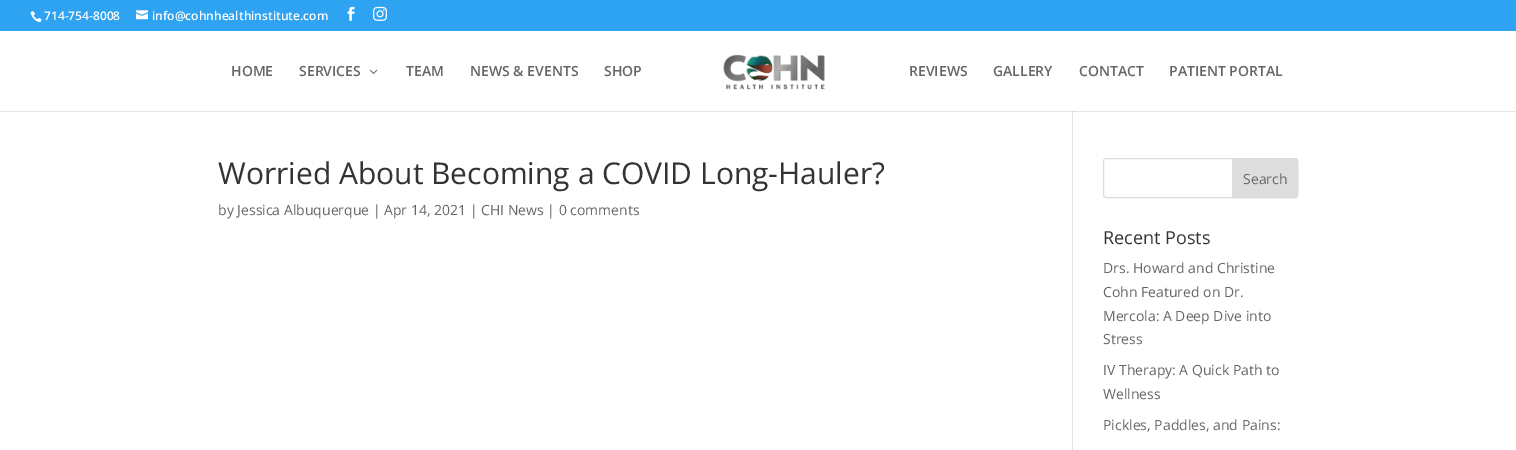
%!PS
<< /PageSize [1516 450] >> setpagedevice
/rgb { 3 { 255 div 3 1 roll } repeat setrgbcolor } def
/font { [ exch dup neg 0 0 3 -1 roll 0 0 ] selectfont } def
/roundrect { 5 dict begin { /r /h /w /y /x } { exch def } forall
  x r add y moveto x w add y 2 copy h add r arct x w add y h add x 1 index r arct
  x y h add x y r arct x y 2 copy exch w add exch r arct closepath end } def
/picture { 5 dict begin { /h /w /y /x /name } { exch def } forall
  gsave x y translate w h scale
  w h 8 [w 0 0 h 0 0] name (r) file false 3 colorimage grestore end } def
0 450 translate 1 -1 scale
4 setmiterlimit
255 255 255 rgb
0 0 1516 450 rectfill
46 163 242 rgb
0 0 1516 31 rectfill
(img/1.rgb) 30 11 12 12 picture
(img/2.rgb) 136 10 12 10 picture
(img/3.rgb) 347 6 8 15 picture
(img/4.rgb) 373 6 14 15 picture
(img/5.rgb) 369 69 9 5 picture
(img/6.rgb) 723 54 102 36 picture
[
  [0 111 1516 1 230 230 230]
  [1072 112 1 338 226 226 226]
  [1072 111 1 1 203 203 203]
] { aload pop rgb rectfill } forall
221 221 221 rgb
1103.5 158.5 194 39 2.5 roundrect stroke
1232.5 158.5 moveto 1295 158.5 lineto 1296.5 158.5 1297.5 159.5 1297.5 161 curveto 1297.5 195 lineto 1297.5 196.5 1296.5 197.5 1295 197.5 curveto 1232.5 197.5 lineto closepath gsave fill grestore
stroke
/OpenSans-SemiBold 12 font
255 255 255 rgb
44 20 moveto (714-754-8008) show
152 20 moveto (info@cohnhealthinstitute.com) show
/OpenSans-SemiBold 14 font
102 102 102 rgb
[
  [(HOME) 231 76]
  [(SERVICES) 299 76]
  [(TEAM) 406 76]
  [(NEWS & EVENTS) 470 76]
  [(SHOP) 604 76]
  [(REVIEWS) 909 76]
  [(GALLERY) 993 76]
  [(CONTACT) 1079 76]
  [(PATIENT PORTAL) 1169 76]
] { aload pop moveto show } forall
/OpenSans-Regular 30 font
51 51 51 rgb
218 184 moveto (Worried About Becoming a COVID Long-Hauler?) show
/OpenSans-Regular 14 font
102 102 102 rgb
218 215 moveto (by Jessica Albuquerque | Apr 14, 2021 | CHI News | 0 comments) show
1243 184 moveto (Search) show
/OpenSans-Regular 18 font
51 51 51 rgb
1103 244 moveto (Recent Posts) show
/OpenSans-Regular 14 font
102 102 102 rgb
[
  [(Drs. Howard and Christine) 1103 273]
  [(Cohn Featured on Dr.) 1103 297]
  [(Mercola: A Deep Dive into) 1103 321]
  [(Stress) 1103 344]
  [(IV Therapy: A Quick Path to) 1103 375]
  [(Wellness) 1103 399]
  [(Pickles, Paddles, and Pains:) 1103 430]
] { aload pop moveto show } forall
showpage
